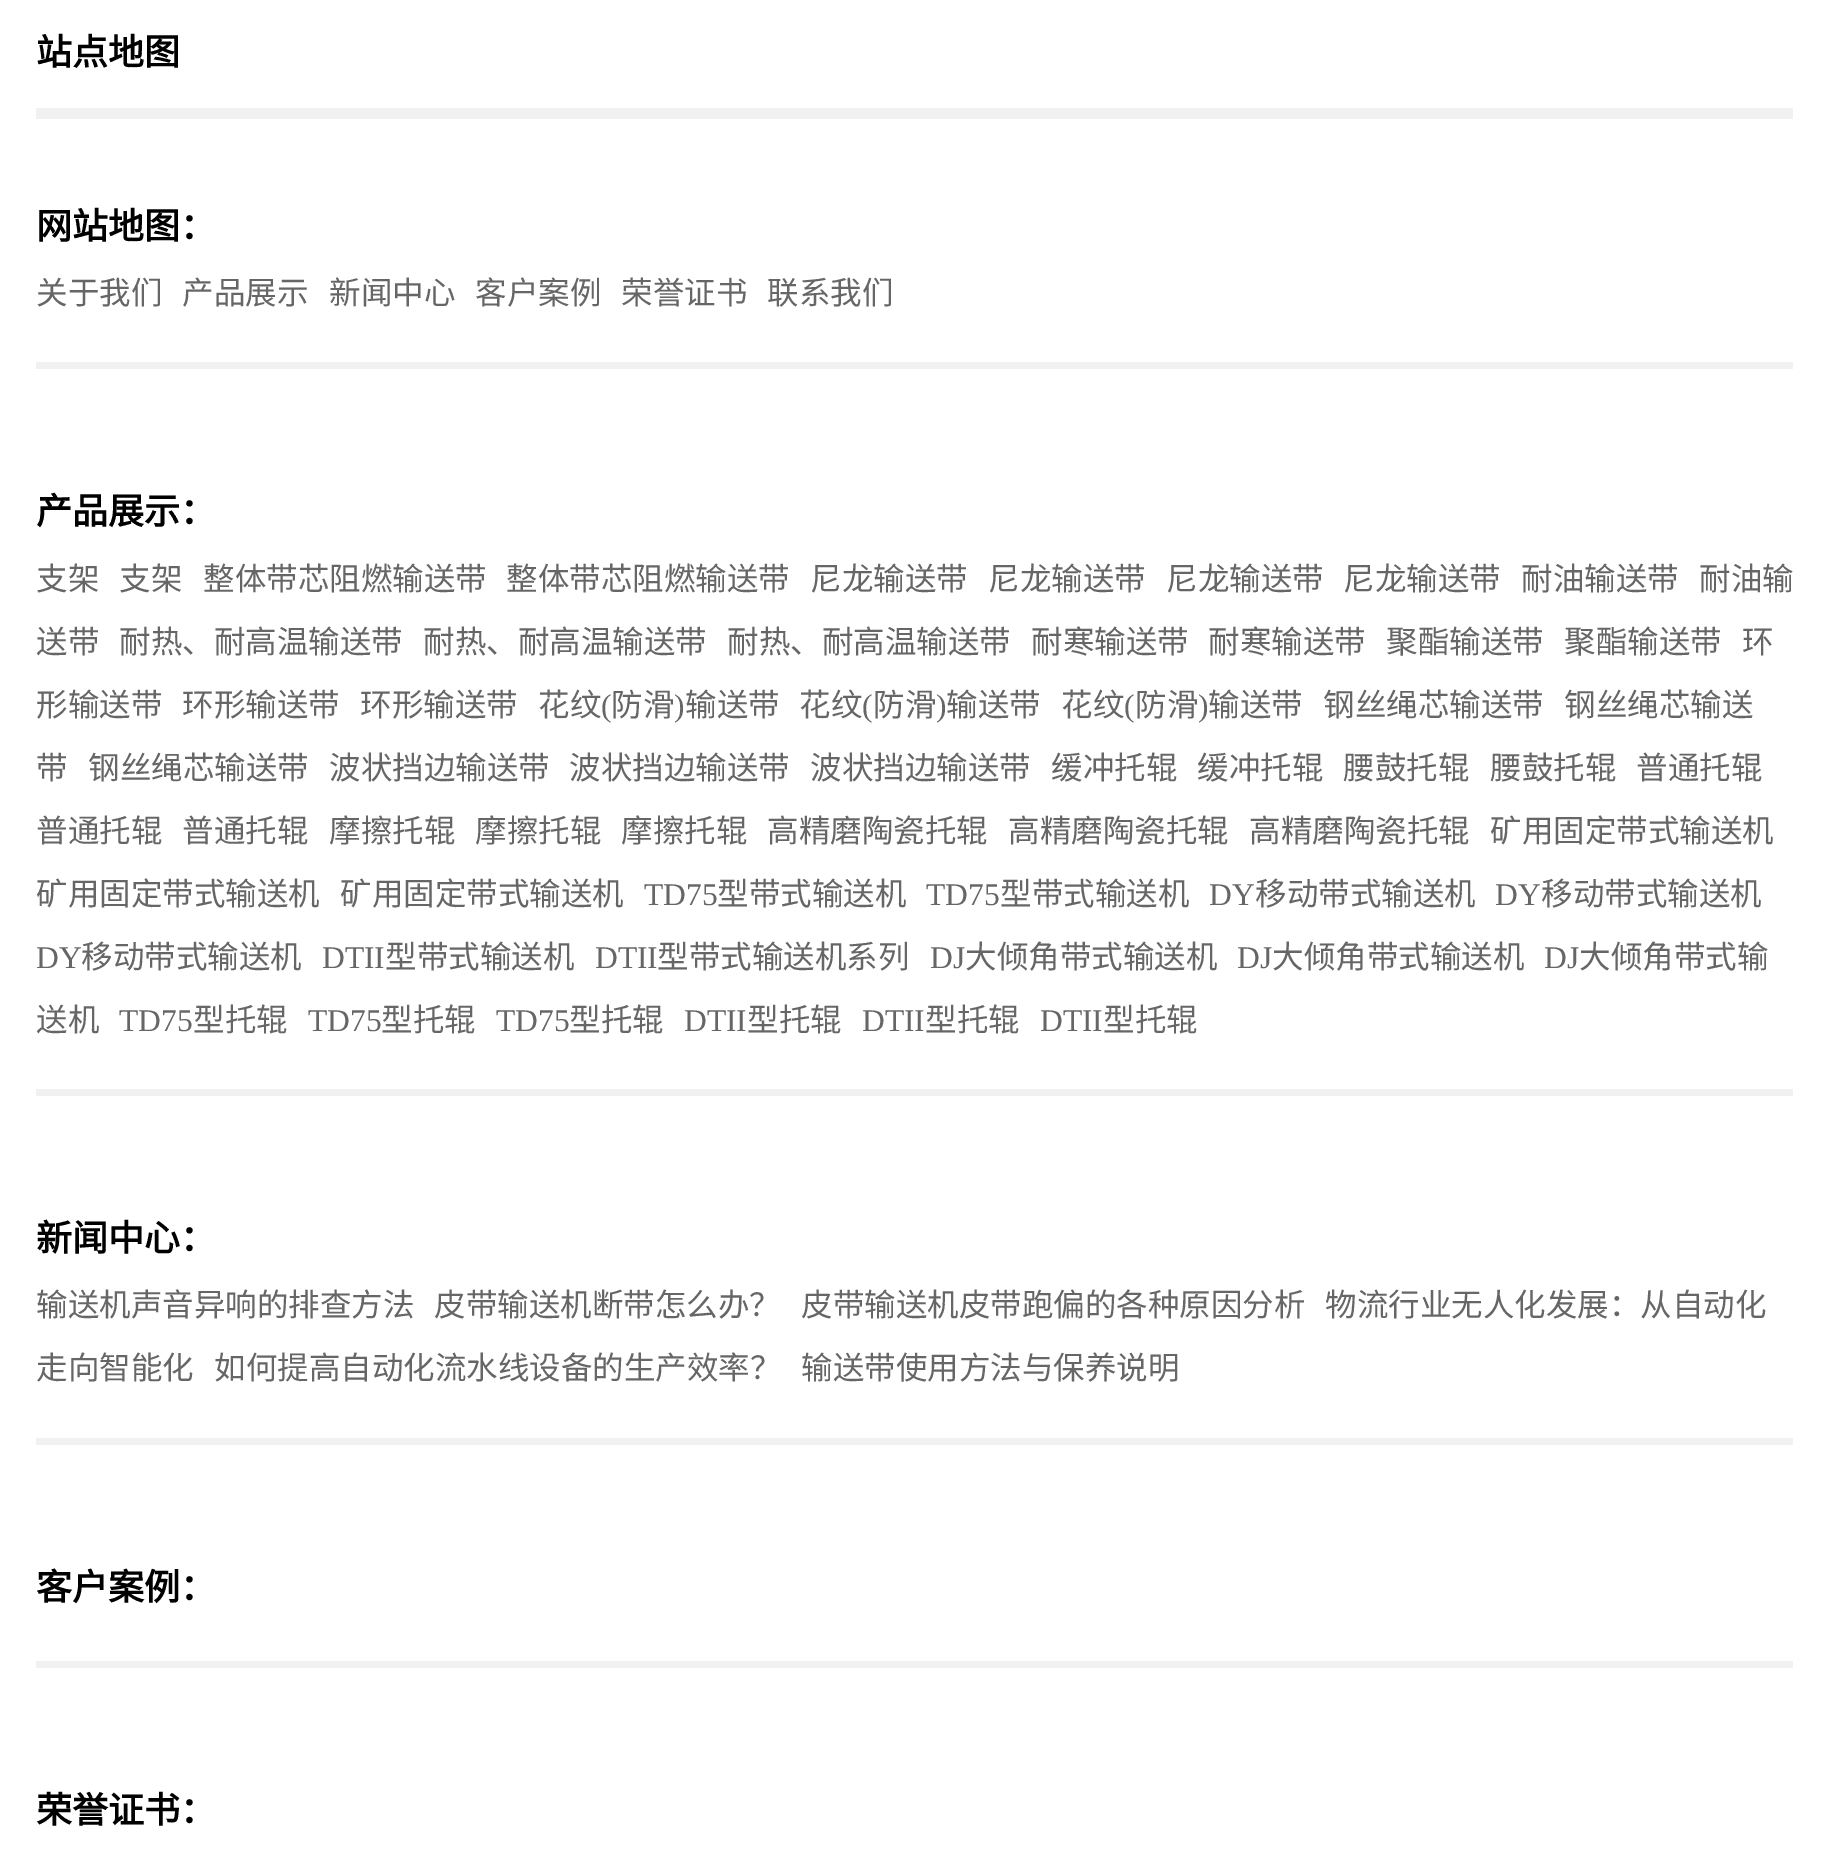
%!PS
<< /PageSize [1829 1871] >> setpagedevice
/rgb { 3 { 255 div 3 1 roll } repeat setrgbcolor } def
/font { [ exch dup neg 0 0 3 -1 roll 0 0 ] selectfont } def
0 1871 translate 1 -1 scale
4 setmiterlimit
255 255 255 rgb
0 0 1829 1871 rectfill
[
  [36 108 1757 11 241 241 241]
  [36 362 1757 7 241 241 241]
  [36 1089 1757 7 241 241 241]
  [36 1438 1757 7 241 241 241]
  [36 1661 1757 7 241 241 241]
] { aload pop rgb rectfill } forall
/NotoSansCJKSC-Bold 36 font
0 0 0 rgb
36 65 moveto (站点地图) show
36 239 moveto (网站地图：) show
/NotoSansCJKSC-Regular 31.5 font
102 102 102 rgb
[
  [(关于我们) 36 304]
  [(产品展示) 182 304]
  [(新闻中心) 329 304]
  [(客户案例) 475 304]
  [(荣誉证书) 621 304]
  [(联系我们) 767 304]
] { aload pop moveto show } forall
/NotoSansCJKSC-Bold 36 font
0 0 0 rgb
36 524 moveto (产品展示：) show
/NotoSansCJKSC-Regular 31.5 font
102 102 102 rgb
[
  [(支架) 36 590]
  [(支架) 119 590]
  [(整体带芯阻燃输送带) 203 590]
  [(整体带芯阻燃输送带) 506 590]
  [(尼龙输送带) 810 590]
  [(尼龙输送带) 988 590]
  [(尼龙输送带) 1166 590]
  [(尼龙输送带) 1343 590]
  [(耐油输送带) 1521 590]
  [(耐油输) 1699 590]
  [(送带) 36 653]
  [(耐热、耐高温输送带) 119 653]
  [(耐热、耐高温输送带) 423 653]
  [(耐热、耐高温输送带) 727 653]
  [(耐寒输送带) 1031 653]
  [(耐寒输送带) 1208 653]
  [(聚酯输送带) 1386 653]
  [(聚酯输送带) 1564 653]
  [(环) 1742 653]
  [(形输送带) 36 716]
  [(环形输送带) 182 716]
  [(环形输送带) 360 716]
  [(花纹) 538 716]
] { aload pop moveto show } forall
/LiberationSerif-Regular 31.5 font
601 716 moveto (\() show
/NotoSansCJKSC-Regular 31.5 font
611 716 moveto (防滑) show
/LiberationSerif-Regular 31.5 font
674 716 moveto (\)) show
/NotoSansCJKSC-Regular 31.5 font
685 716 moveto (输送带) show
799 716 moveto (花纹) show
/LiberationSerif-Regular 31.5 font
862 716 moveto (\() show
/NotoSansCJKSC-Regular 31.5 font
873 716 moveto (防滑) show
/LiberationSerif-Regular 31.5 font
936 716 moveto (\)) show
/NotoSansCJKSC-Regular 31.5 font
946 716 moveto (输送带) show
1061 716 moveto (花纹) show
/LiberationSerif-Regular 31.5 font
1124 716 moveto (\() show
/NotoSansCJKSC-Regular 31.5 font
1135 716 moveto (防滑) show
/LiberationSerif-Regular 31.5 font
1198 716 moveto (\)) show
/NotoSansCJKSC-Regular 31.5 font
[
  [(输送带) 1208 716]
  [(钢丝绳芯输送带) 1323 716]
  [(钢丝绳芯输送) 1564 716]
  [(带) 36 779]
  [(钢丝绳芯输送带) 88 779]
  [(波状挡边输送带) 329 779]
  [(波状挡边输送带) 569 779]
  [(波状挡边输送带) 810 779]
  [(缓冲托辊) 1051 779]
  [(缓冲托辊) 1197 779]
  [(腰鼓托辊) 1343 779]
  [(腰鼓托辊) 1490 779]
  [(普通托辊) 1636 779]
  [(普通托辊) 36 842]
  [(普通托辊) 182 842]
  [(摩擦托辊) 329 842]
  [(摩擦托辊) 475 842]
  [(摩擦托辊) 621 842]
  [(高精磨陶瓷托辊) 767 842]
  [(高精磨陶瓷托辊) 1008 842]
  [(高精磨陶瓷托辊) 1249 842]
  [(矿用固定带式输送机) 1490 842]
  [(矿用固定带式输送机) 36 905]
  [(矿用固定带式输送机) 340 905]
] { aload pop moveto show } forall
/LiberationSerif-Regular 31.5 font
644 905 moveto (TD75) show
/NotoSansCJKSC-Regular 31.5 font
717 905 moveto (型带式输送机) show
/LiberationSerif-Regular 31.5 font
926 905 moveto (TD75) show
/NotoSansCJKSC-Regular 31.5 font
1000 905 moveto (型带式输送机) show
/LiberationSerif-Regular 31.5 font
1209 905 moveto (DY) show
/NotoSansCJKSC-Regular 31.5 font
1255 905 moveto (移动带式输送机) show
/LiberationSerif-Regular 31.5 font
1495 905 moveto (DY) show
/NotoSansCJKSC-Regular 31.5 font
1541 905 moveto (移动带式输送机) show
/LiberationSerif-Regular 31.5 font
36 968 moveto (DY) show
/NotoSansCJKSC-Regular 31.5 font
81 968 moveto (移动带式输送机) show
/LiberationSerif-Regular 31.5 font
322 968 moveto (DTII) show
/NotoSansCJKSC-Regular 31.5 font
385 968 moveto (型带式输送机) show
/LiberationSerif-Regular 31.5 font
595 968 moveto (DTII) show
/NotoSansCJKSC-Regular 31.5 font
657 968 moveto (型带式输送机系列) show
/LiberationSerif-Regular 31.5 font
930 968 moveto (DJ) show
/NotoSansCJKSC-Regular 31.5 font
965 968 moveto (大倾角带式输送机) show
/LiberationSerif-Regular 31.5 font
1237 968 moveto (DJ) show
/NotoSansCJKSC-Regular 31.5 font
1272 968 moveto (大倾角带式输送机) show
/LiberationSerif-Regular 31.5 font
1544 968 moveto (DJ) show
/NotoSansCJKSC-Regular 31.5 font
1579 968 moveto (大倾角带式输) show
36 1031 moveto (送机) show
/LiberationSerif-Regular 31.5 font
119 1031 moveto (TD75) show
/NotoSansCJKSC-Regular 31.5 font
193 1031 moveto (型托辊) show
/LiberationSerif-Regular 31.5 font
308 1031 moveto (TD75) show
/NotoSansCJKSC-Regular 31.5 font
381 1031 moveto (型托辊) show
/LiberationSerif-Regular 31.5 font
496 1031 moveto (TD75) show
/NotoSansCJKSC-Regular 31.5 font
569 1031 moveto (型托辊) show
/LiberationSerif-Regular 31.5 font
684 1031 moveto (DTII) show
/NotoSansCJKSC-Regular 31.5 font
747 1031 moveto (型托辊) show
/LiberationSerif-Regular 31.5 font
862 1031 moveto (DTII) show
/NotoSansCJKSC-Regular 31.5 font
925 1031 moveto (型托辊) show
/LiberationSerif-Regular 31.5 font
1040 1031 moveto (DTII) show
/NotoSansCJKSC-Regular 31.5 font
1103 1031 moveto (型托辊) show
/NotoSansCJKSC-Bold 36 font
0 0 0 rgb
36 1251 moveto (新闻中心：) show
/NotoSansCJKSC-Regular 31.5 font
102 102 102 rgb
[
  [(输送机声音异响的排查方法) 36 1316]
  [(皮带输送机断带怎么办？) 434 1316]
  [(皮带输送机皮带跑偏的各种原因分析) 801 1316]
  [(物流行业无人化发展：从自动化) 1325 1316]
  [(走向智能化) 36 1379]
  [(如何提高自动化流水线设备的生产效率？) 214 1379]
  [(输送带使用方法与保养说明) 801 1379]
] { aload pop moveto show } forall
/NotoSansCJKSC-Bold 36 font
0 0 0 rgb
36 1600 moveto (客户案例：) show
36 1823 moveto (荣誉证书：) show
showpage
